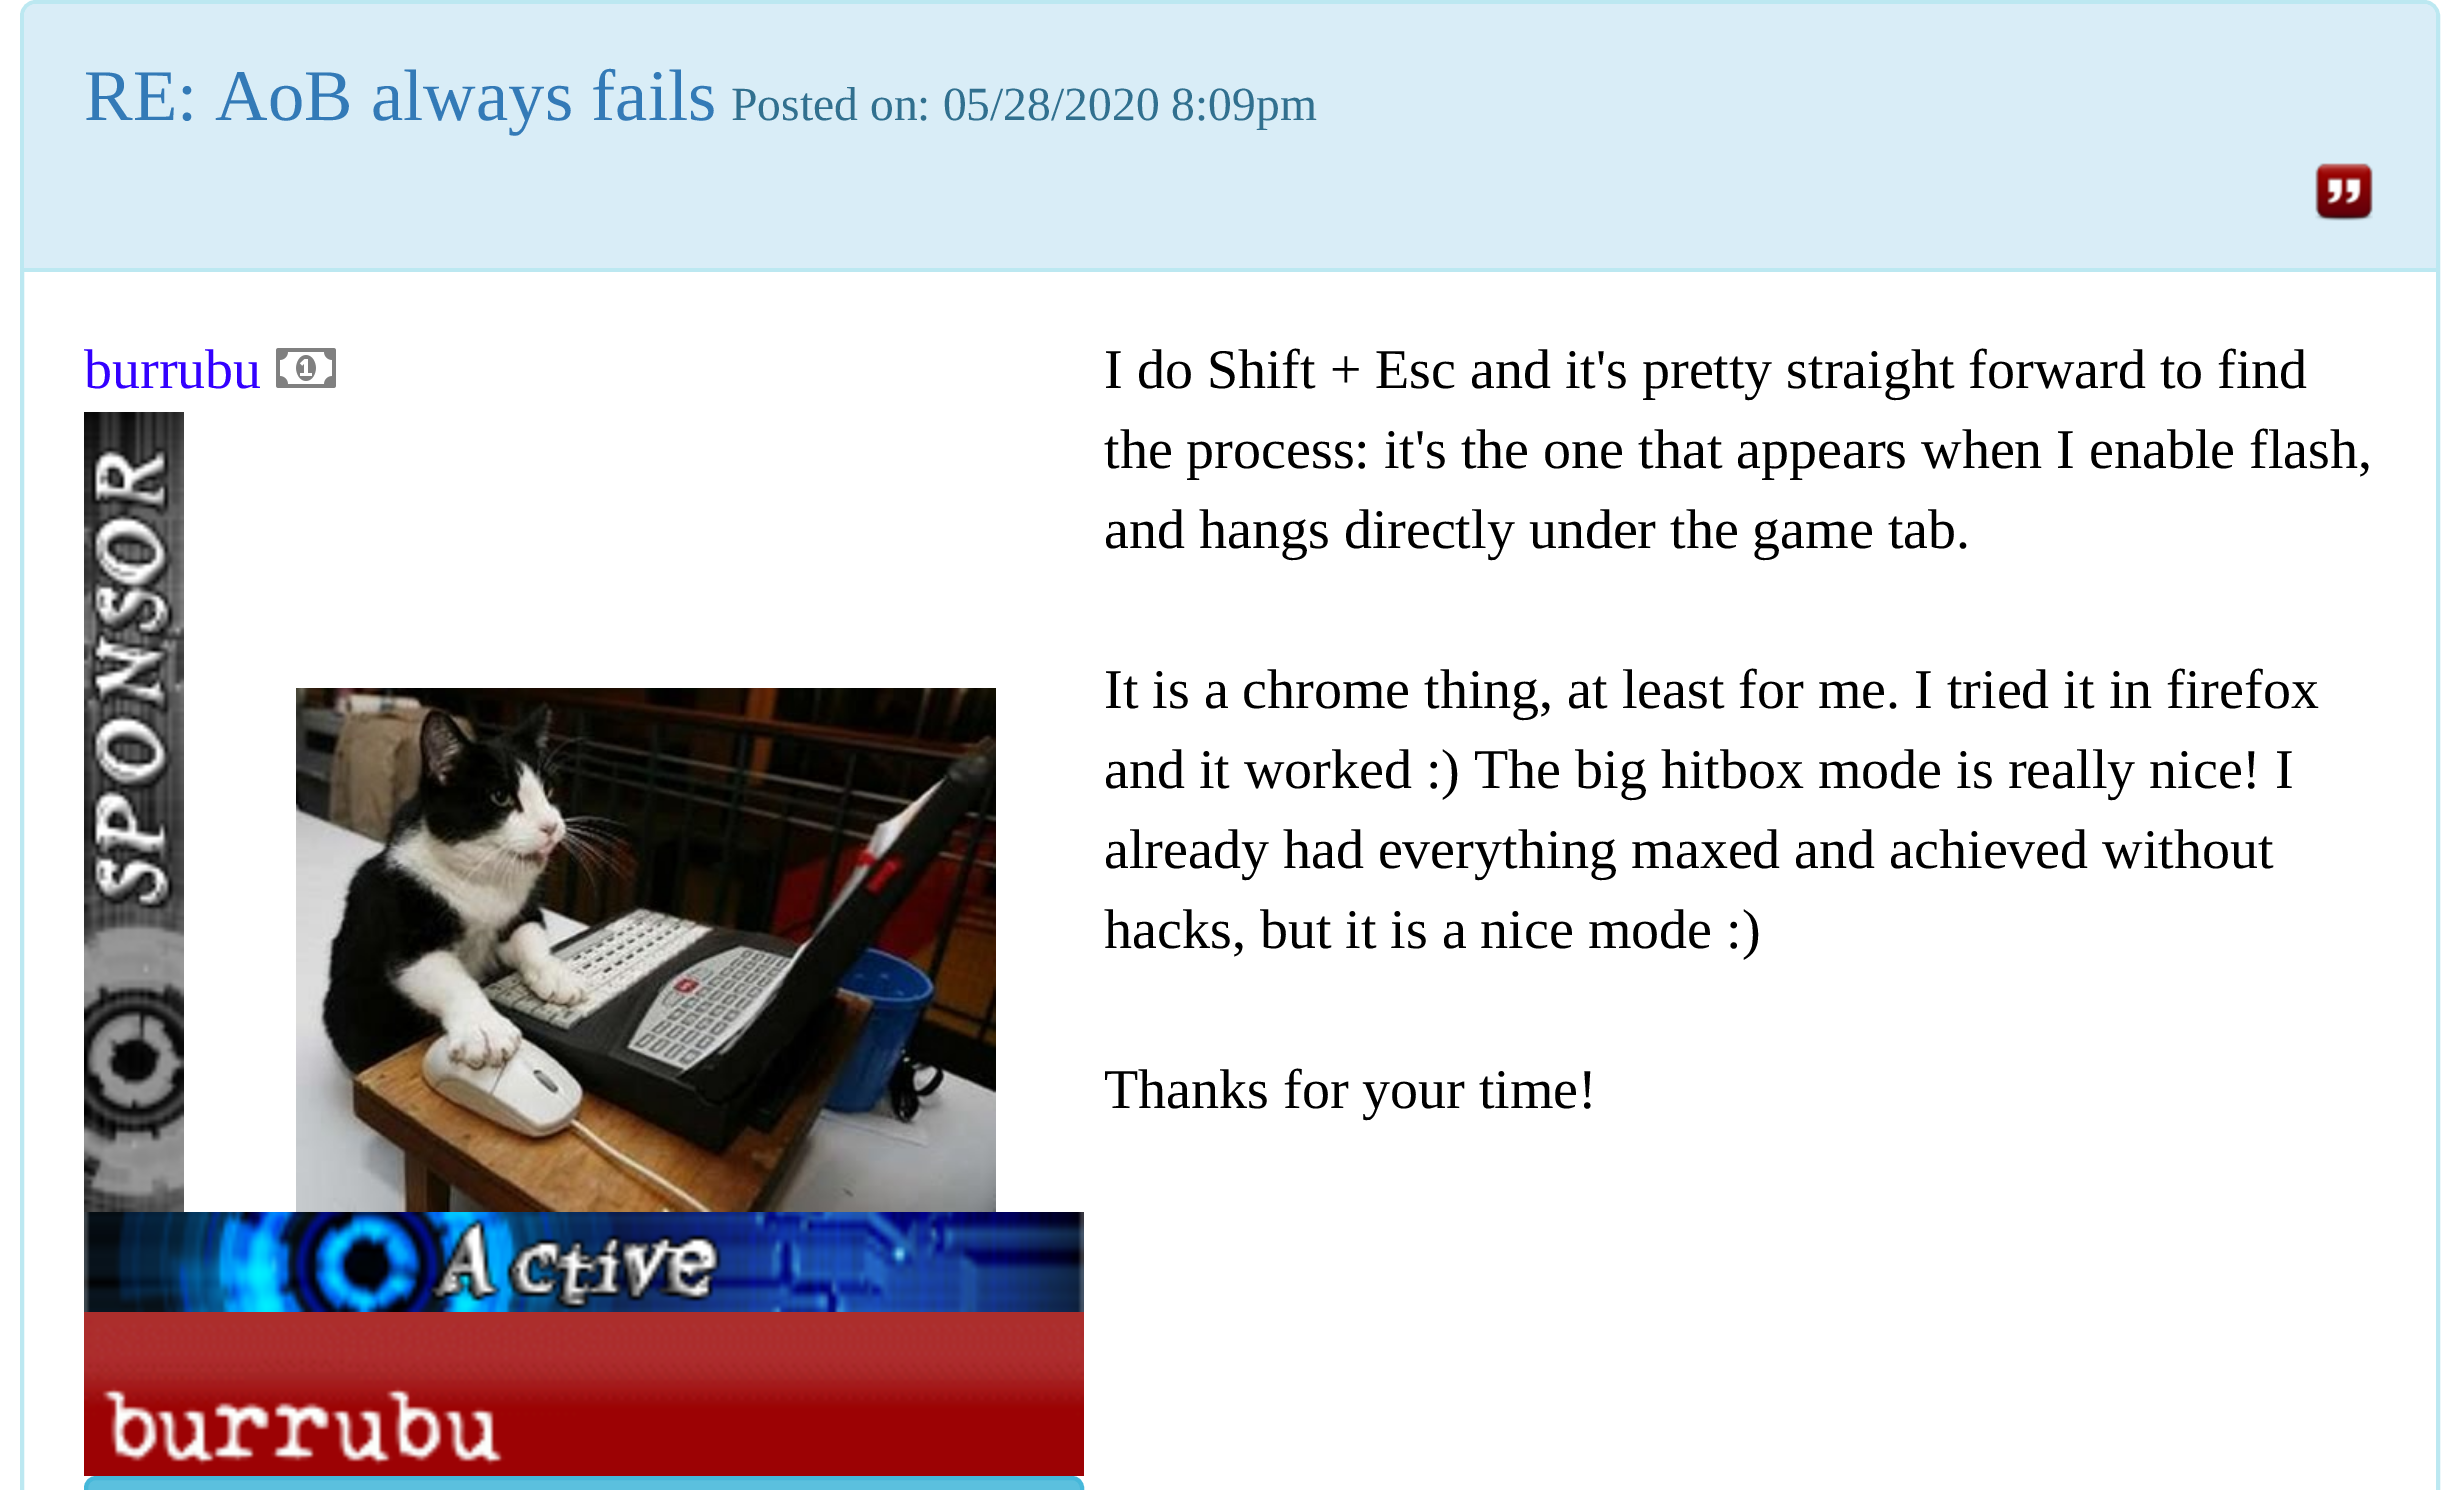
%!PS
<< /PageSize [2459 1490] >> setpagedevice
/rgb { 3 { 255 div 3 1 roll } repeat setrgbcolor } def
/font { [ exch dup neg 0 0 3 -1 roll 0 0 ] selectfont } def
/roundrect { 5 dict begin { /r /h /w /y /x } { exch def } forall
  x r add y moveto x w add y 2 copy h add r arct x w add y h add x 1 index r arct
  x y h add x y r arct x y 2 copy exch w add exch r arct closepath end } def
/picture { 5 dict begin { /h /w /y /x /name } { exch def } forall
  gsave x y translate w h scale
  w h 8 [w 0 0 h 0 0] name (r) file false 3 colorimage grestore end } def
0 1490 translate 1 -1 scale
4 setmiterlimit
255 255 255 rgb
0 0 2459 1490 rectfill
188 232 241 rgb
4 setlinewidth
22 2 2416 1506 14 roundrect stroke
217 237 247 rgb
36 4 moveto 2424 4 lineto 2430.5 4 2436 9.5 2436 16 curveto 2436 272 lineto 24 272 lineto 24 16 lineto 24 9.5 29.5 4 36 4 curveto closepath fill
188 232 241 rgb
24 268 2412 4 rectfill
(img/1.rgb) 2315 163 58 58 picture
(img/2.rgb) 276 348 60 40 picture
(img/3.rgb) 84 412 100 800 picture
(img/4.rgb) 296 688 700 524 picture
(img/5.rgb) 84 1212 1000 100 picture
(img/6.rgb) 84 1312 1000 164 picture
91 192 222 rgb
86 1478 996 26 10 roundrect gsave fill grestore
70 184 218 rgb
stroke
/LiberationSerif-Regular 72.75 font
51 122 183 rgb
84 120 moveto (RE: AoB always fails) show
/LiberationSerif-Regular 47.6 font
49 112 143 rgb
731 120 moveto (Posted on: 05/28/2020 8:09pm) show
/LiberationSerif-Regular 56 font
51 0 255 rgb
84 388 moveto (burrubu) show
0 0 0 rgb
[
  [(I do Shift + Esc and it's pretty straight forward to find) 1104 388]
  [(the process: it's the one that appears when I enable flash,) 1104 468]
  [(and hangs directly under the game tab.) 1104 548]
  [(It is a chrome thing, at least for me. I tried it in firefox) 1104 708]
  [(and it worked :\) The big hitbox mode is really nice! I) 1104 788]
  [(already had everything maxed and achieved without) 1104 868]
  [(hacks, but it is a nice mode :\)) 1104 948]
  [(Thanks for your time!) 1104 1108]
] { aload pop moveto show } forall
showpage
